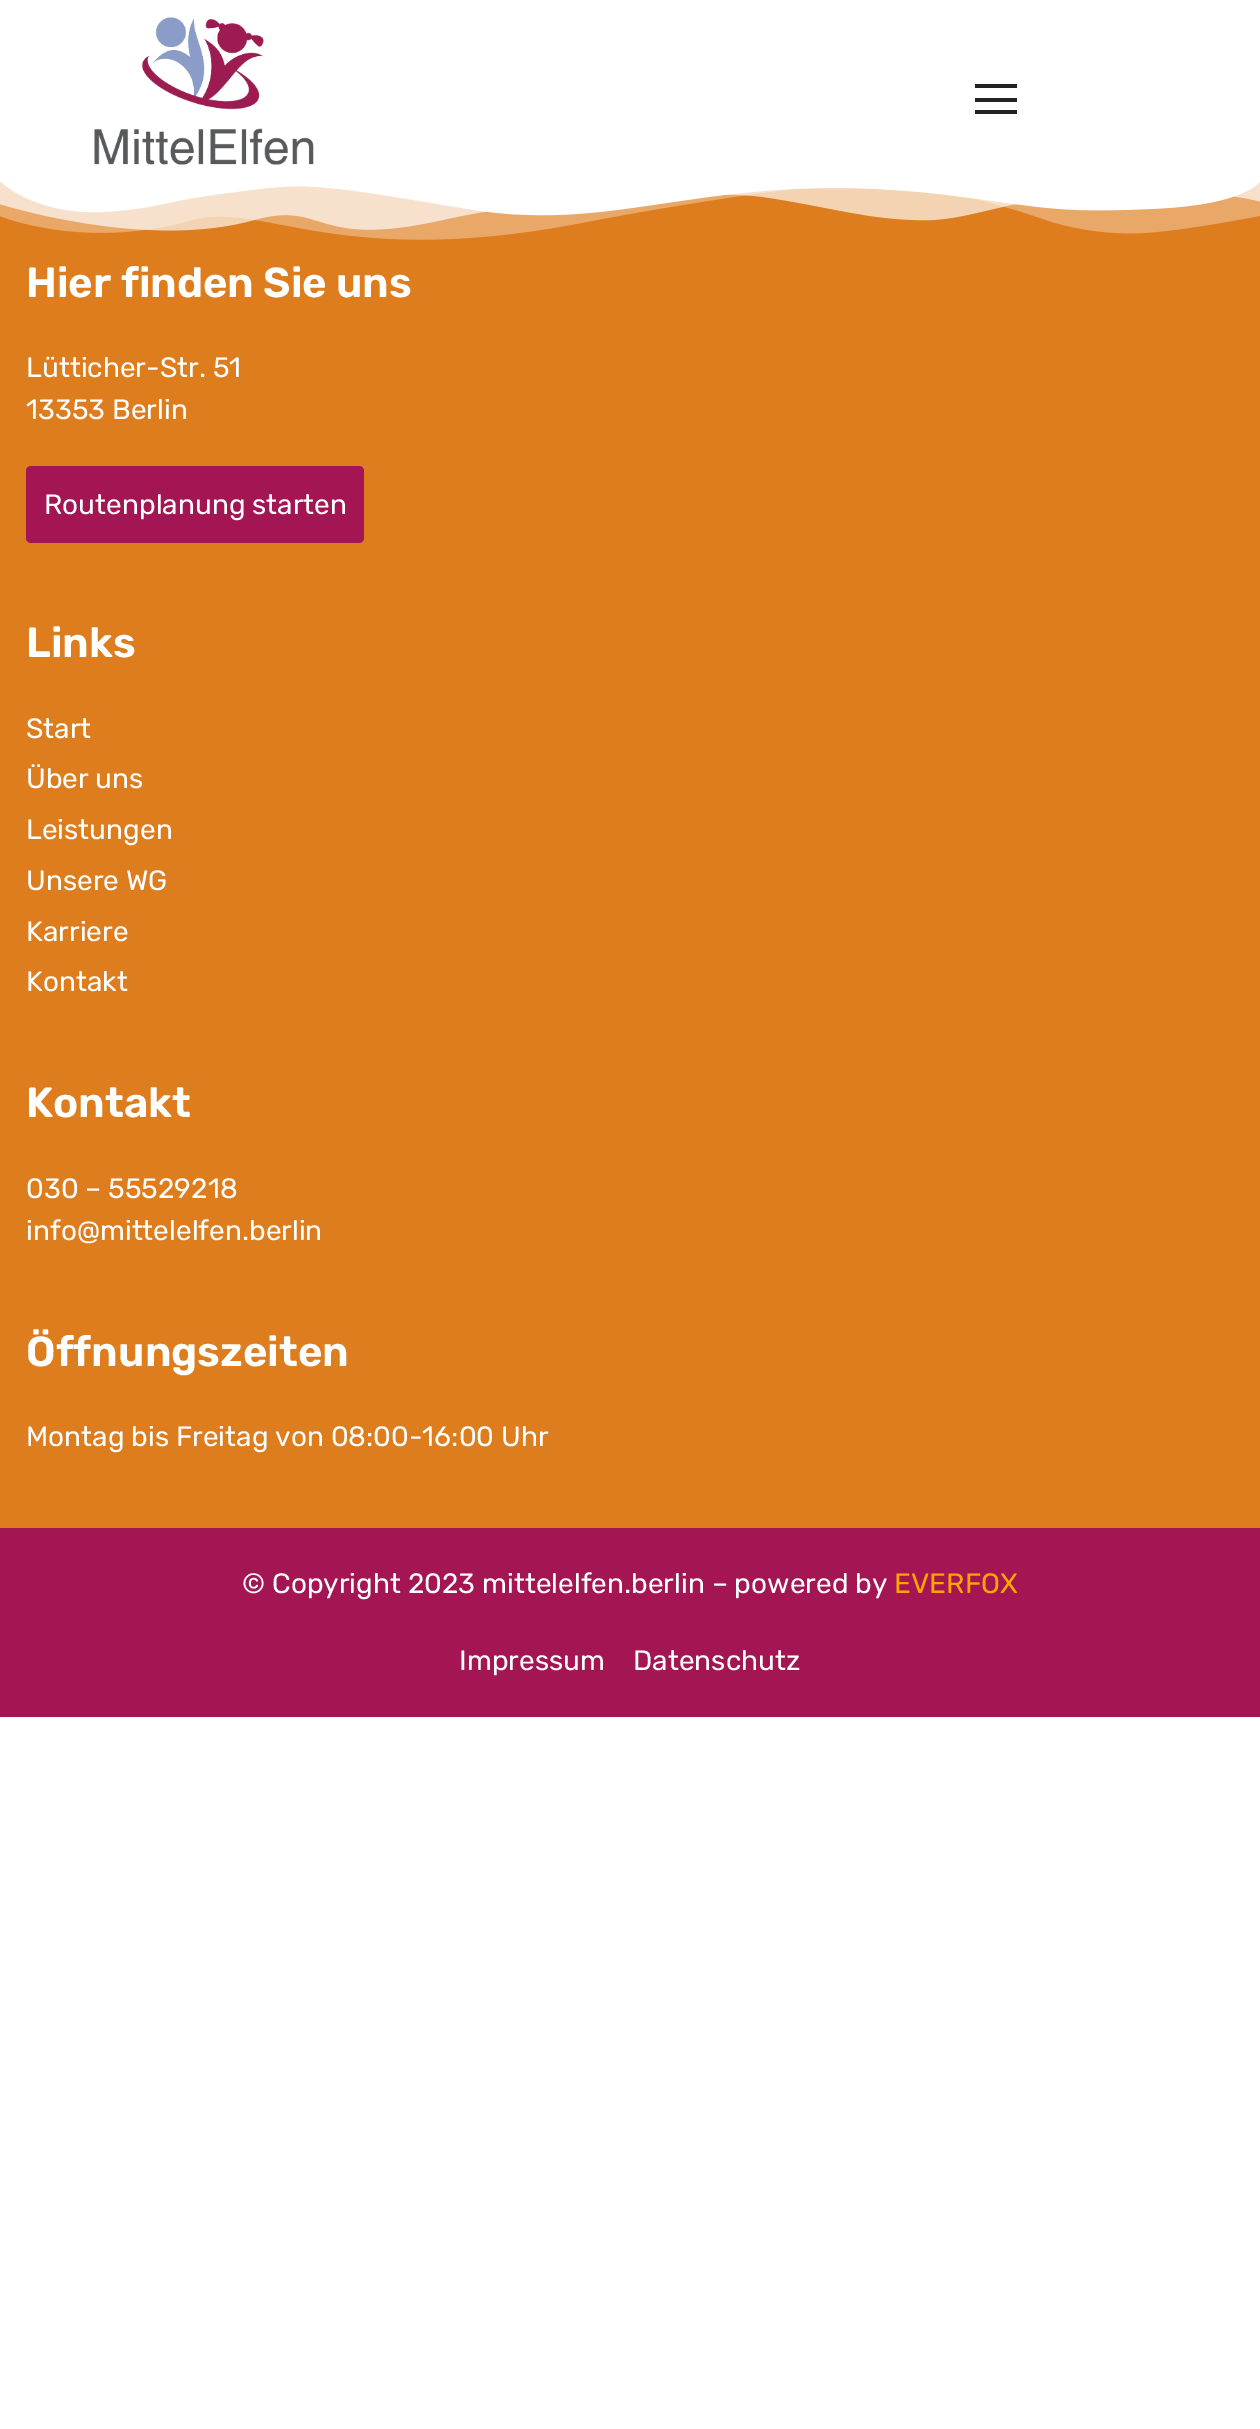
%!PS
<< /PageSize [1260 2429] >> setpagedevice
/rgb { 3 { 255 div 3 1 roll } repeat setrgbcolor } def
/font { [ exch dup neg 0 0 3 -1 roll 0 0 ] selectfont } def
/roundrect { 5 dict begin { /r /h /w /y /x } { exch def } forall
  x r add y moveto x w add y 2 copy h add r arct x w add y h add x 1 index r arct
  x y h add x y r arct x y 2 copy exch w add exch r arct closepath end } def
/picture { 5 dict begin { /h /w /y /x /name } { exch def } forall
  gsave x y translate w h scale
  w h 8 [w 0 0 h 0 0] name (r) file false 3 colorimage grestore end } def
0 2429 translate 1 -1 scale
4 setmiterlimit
255 255 255 rgb
0 0 1260 2429 rectfill
(img/1.rgb) 94 17 220 148 picture
[
  [975 84 42 4 34 34 34]
  [975 98 42 4 34 34 34]
  [975 110 42 4 34 34 34]
  [0 182 1260 1346 222 125 30]
] { aload pop rgb rectfill } forall
(img/2.rgb) 0 182 1260 58 picture
163 21 83 rgb
26 466 338 77 5 roundrect fill
0 1528 1260 189 rectfill
/Rubik-SemiBold 42 font
255 255 255 rgb
26 297 moveto (Hier finden Sie uns) show
/Rubik-Regular 28 font
[
  [(Lütticher-Str. 51) 26 377]
  [(13353 Berlin) 26 419]
  [(Routenplanung starten) 44 514]
] { aload pop moveto show } forall
/Rubik-SemiBold 42 font
26 657 moveto (Links) show
/Rubik-Regular 28 font
[
  [(Start) 26 738]
  [(Über uns) 26 788]
  [(Leistungen) 26 839]
  [(Unsere WG) 26 890]
  [(Karriere) 26 941]
  [(Kontakt) 26 991]
] { aload pop moveto show } forall
/Rubik-SemiBold 42 font
26 1117 moveto (Kontakt) show
/Rubik-Regular 28 font
26 1198 moveto (030 – 55529218) show
26 1240 moveto (info@mittelelfen.berlin) show
/Rubik-SemiBold 42 font
26 1366 moveto (Öffnungszeiten) show
/Rubik-Regular 28 font
26 1446 moveto (Montag bis Freitag von 08:00-16:00 Uhr) show
242 1593 moveto (© Copyright 2023 mittelelfen.berlin – powered by) show
255 165 0 rgb
894 1593 moveto (EVERFOX) show
255 255 255 rgb
459 1670 moveto (Impressum) show
633 1670 moveto (Datenschutz) show
showpage
